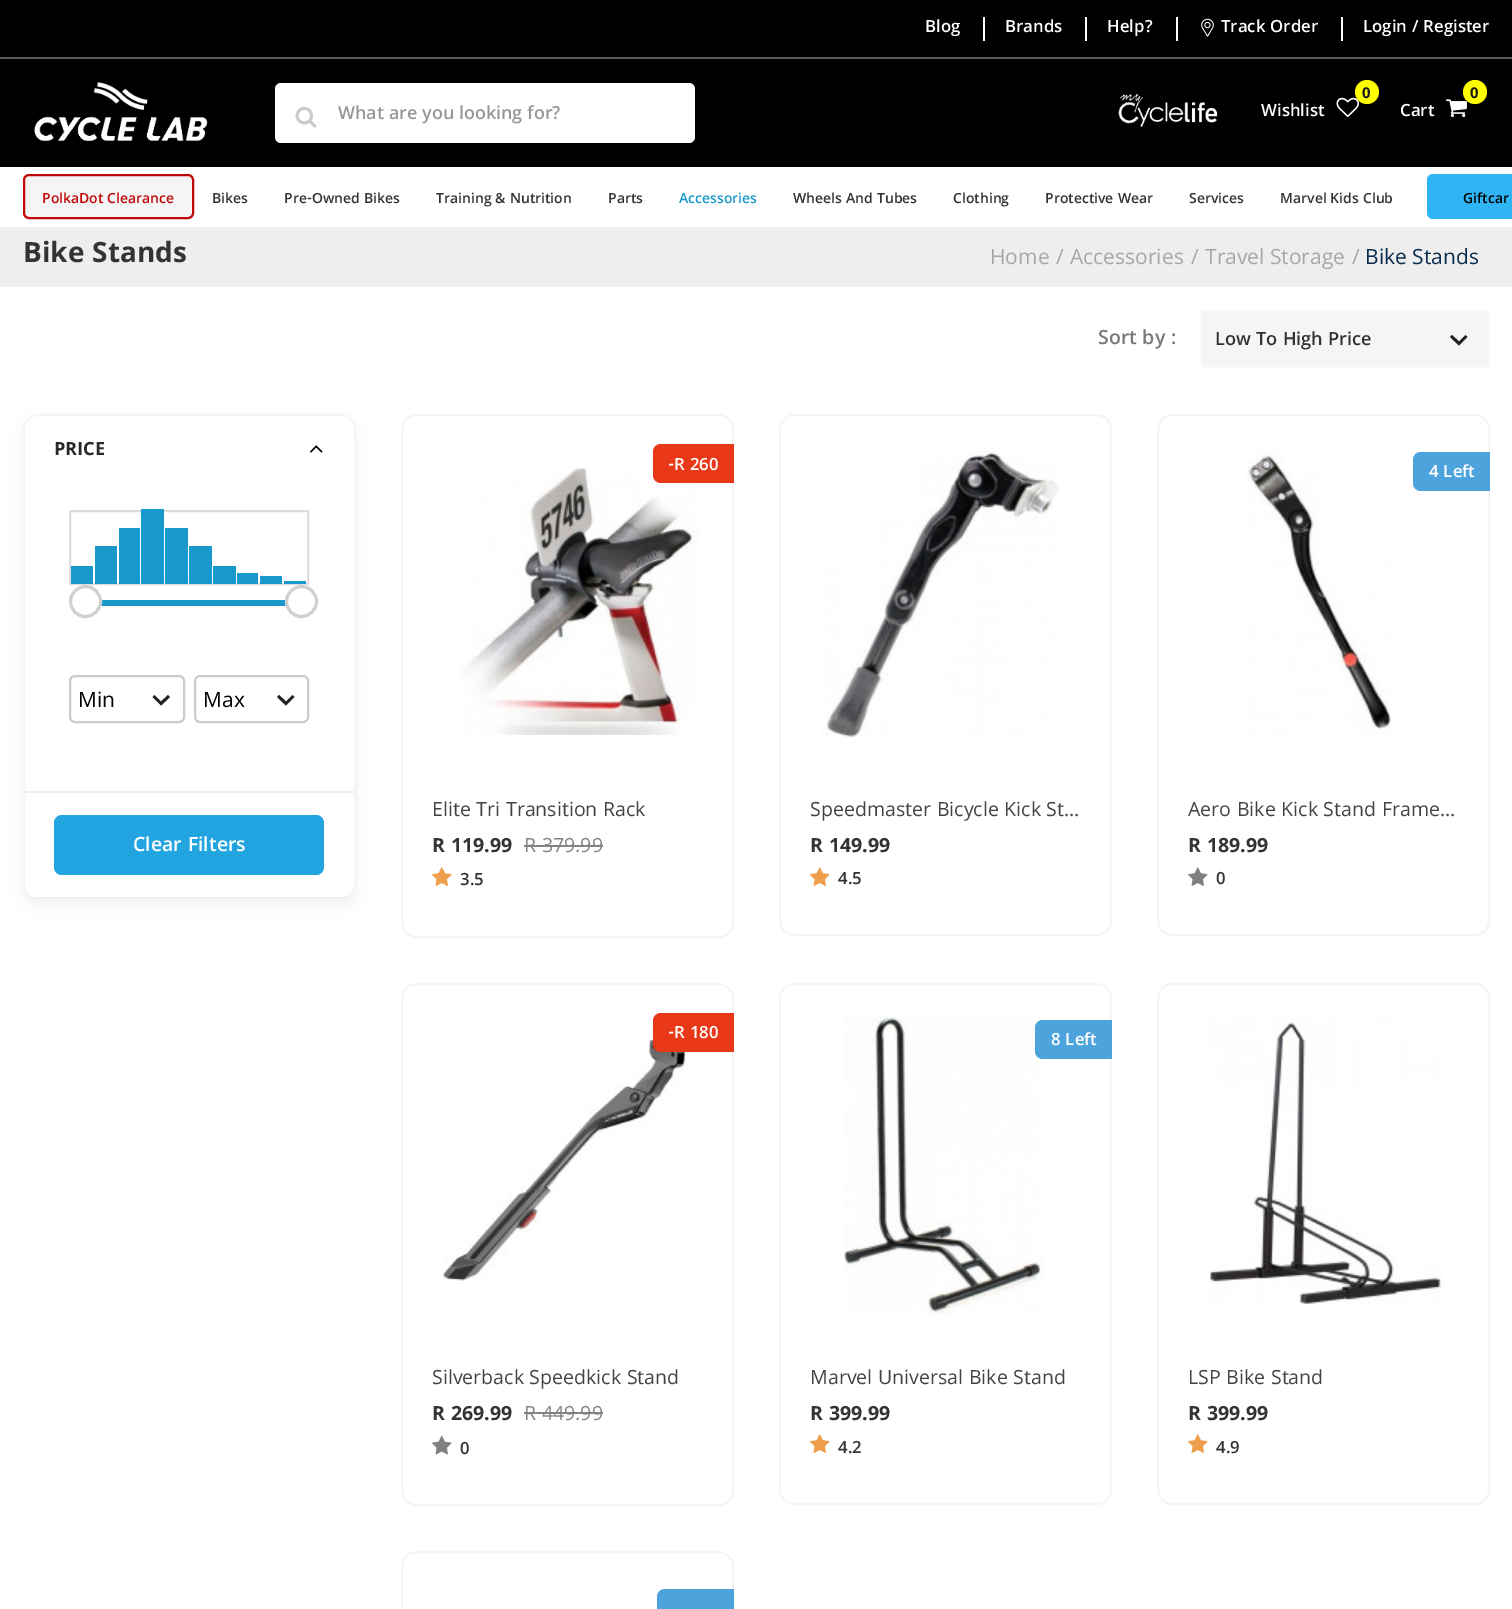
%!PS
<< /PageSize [1512 1609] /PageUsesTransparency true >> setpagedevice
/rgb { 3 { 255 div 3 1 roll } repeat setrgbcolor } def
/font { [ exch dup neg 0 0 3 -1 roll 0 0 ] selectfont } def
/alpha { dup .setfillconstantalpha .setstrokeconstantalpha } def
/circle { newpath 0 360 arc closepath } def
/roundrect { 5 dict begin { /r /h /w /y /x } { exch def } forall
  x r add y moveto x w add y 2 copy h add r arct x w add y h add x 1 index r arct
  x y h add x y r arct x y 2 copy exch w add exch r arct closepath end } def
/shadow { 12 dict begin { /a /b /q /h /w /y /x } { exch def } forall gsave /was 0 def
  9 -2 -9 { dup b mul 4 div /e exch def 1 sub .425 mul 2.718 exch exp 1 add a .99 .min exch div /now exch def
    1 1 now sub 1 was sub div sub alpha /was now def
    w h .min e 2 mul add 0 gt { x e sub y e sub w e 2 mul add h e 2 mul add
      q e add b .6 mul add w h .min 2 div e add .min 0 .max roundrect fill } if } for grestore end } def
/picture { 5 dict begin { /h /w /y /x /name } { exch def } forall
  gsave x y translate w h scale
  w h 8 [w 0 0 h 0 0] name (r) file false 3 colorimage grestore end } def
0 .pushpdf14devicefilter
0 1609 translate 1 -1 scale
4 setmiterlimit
255 255 255 rgb
0 0 1512 1609 rectfill
[
  [0 0 1512 57 0 0 0]
  [0 57 1512 2 90 90 90]
  [983 17 2 24 255 255 255]
  [1085 17 2 24 255 255 255]
  [1176 17 2 24 255 255 255]
] { aload pop rgb rectfill } forall
(img/1.rgb) 1201 18 13 19 picture
1341 17 2 24 rectfill
0 0 0 rgb
0 59 1512 108 rectfill
(img/2.rgb) 34 82 174 59 picture
255 255 255 rgb
275 83 420 60 6 roundrect fill
(img/3.rgb) 295 106 22 22 picture
(img/4.rgb) 1118 94 100 33 picture
(img/5.rgb) 1336 97 23 21 picture
255 255 0 rgb
1367 92 12 circle fill
(img/6.rgb) 1446 99 21 19 picture
1475 92 12 circle fill
245 245 245 rgb
24 175 169 43 5 roundrect gsave fill grestore
193 8 8 rgb
2 setlinewidth
stroke
47 181 245 rgb
1427 174 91 45 6 roundrect fill
238 238 238 rgb
0 227 1512 60 rectfill
245 245 245 rgb
1199 309 291 60 6 roundrect fill
33 33 33 rgb
1452 335 moveto 1450 337 lineto 1459 345.5 lineto 1467.5 337 lineto 1465.5 335 lineto 1459 341.5 lineto closepath fill
252 250 250 rgb
1200 310 289 58 5 roundrect stroke
0 0 0 rgb
23 420 333 486 15 7.5 0.05 shadow
255 255 255 rgb
24 415 331 484 14 roundrect gsave fill grestore
245 245 245 rgb
stroke
238 238 238 rgb
24 791 330 2 rectfill
(img/7.rgb) 310 445 13 8 picture
221 221 221 rgb
70 511 238 73 rectstroke
[
  [71 566 22 18 24 152 203]
  [95 546 22 38 24 152 203]
  [119 528 21 56 24 152 203]
  [141 509 23 75 24 152 203]
  [165 528 23 56 24 152 203]
  [189 546 23 38 24 152 203]
  [213 566 23 18 24 152 203]
  [237 573 21 11 24 152 203]
  [260 576 22 8 24 152 203]
  [284 581 22 3 24 152 203]
  [101 600 185 6 24 152 203]
] { aload pop rgb rectfill } forall
255 255 255 rgb
85.5 601.5 15 circle gsave fill grestore
209 209 209 rgb
3 setlinewidth
stroke
255 255 255 rgb
301.5 601.5 15 circle gsave fill grestore
209 209 209 rgb
stroke
33 33 33 rgb
154.5 695 moveto 152.5 697 lineto 161 705.5 lineto 170 697 lineto 168 695 lineto 161 701.5 lineto closepath fill
204 204 204 rgb
2 setlinewidth
70 676 114 46 5 roundrect stroke
33 33 33 rgb
279 695 moveto 277 697 lineto 286 705.5 lineto 294.5 697 lineto 292.5 695 lineto 286 701.5 lineto closepath fill
204 204 204 rgb
195 676 113 46 5 roundrect stroke
gsave
24 416 330 483 14 roundrect clip newpath
238 238 238 rgb
24 897 330 2 rectfill
grestore
34 164 225 rgb
54 815 270 60 8 roundrect fill
245 245 245 rgb
402 415 331 522 14 roundrect stroke
(img/8.rgb) 461 466 238 269 picture
232 56 23 rgb
661 444 moveto 734 444 lineto 734 483 lineto 661 483 lineto 656.5 483 653 479.5 653 475 curveto 653 452 lineto 653 447.5 656.5 444 661 444 curveto closepath fill
133 130 130 rgb
524 845 79 2 rectfill
(img/9.rgb) 432 867 20 19 picture
245 245 245 rgb
780 415 331 520 14 roundrect stroke
(img/10.rgb) 822 450 238 288 picture
(img/9.rgb) 810 867 20 19 picture
1158 415 331 520 14 roundrect stroke
77 163 220 rgb
1421 452 moveto 1490 452 lineto 1490 491 lineto 1421 491 lineto 1416.5 491 1413 487.5 1413 483 curveto 1413 460 lineto 1413 455.5 1416.5 452 1421 452 curveto closepath fill
(img/11.rgb) 1246 449 145 286 picture
(img/12.rgb) 1188 867 20 19 picture
245 245 245 rgb
402 984 331 521 14 roundrect stroke
(img/13.rgb) 442 1032 246 249 picture
232 56 23 rgb
661 1013 moveto 734 1013 lineto 734 1052 lineto 661 1052 lineto 656.5 1052 653 1048.5 653 1044 curveto 653 1021 lineto 653 1016.5 656.5 1013 661 1013 curveto closepath fill
133 130 130 rgb
524 1412 79 2 rectfill
(img/14.rgb) 432 1435 20 20 picture
245 245 245 rgb
780 984 331 520 14 roundrect stroke
(img/15.rgb) 844 1016 201 299 picture
77 163 220 rgb
1043 1020 moveto 1112 1020 lineto 1112 1059 lineto 1043 1059 lineto 1038.5 1059 1035 1055.5 1035 1051 curveto 1035 1028 lineto 1035 1023.5 1038.5 1020 1043 1020 curveto closepath fill
(img/9.rgb) 810 1434 20 19 picture
245 245 245 rgb
1158 984 331 520 14 roundrect stroke
(img/16.rgb) 1205 1016 238 288 picture
(img/9.rgb) 1188 1434 20 19 picture
402 1552 331 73 14 roundrect stroke
77 163 220 rgb
665 1589 moveto 734 1589 lineto 734 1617 lineto 665 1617 lineto 660.5 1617 657 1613.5 657 1609 curveto 657 1597 lineto 657 1592.5 660.5 1589 665 1589 curveto closepath fill
/Khula-SemiBold 18 font
255 255 255 rgb
[
  [(Blog) 925 32]
  [(Brands) 1005 32]
  [(Help?) 1107 32]
  [(Track Order) 1221 32]
  [(Login / Register) 1363 32]
] { aload pop moveto show } forall
/OpenSans-SemiBold 18 font
151 151 151 rgb
338 119 moveto (What are you looking for?) show
/Khula-Bold 16 font
24 24 24 rgb
1362 98 moveto (0) show
/Khula-SemiBold 18 font
255 255 255 rgb
1261 116 moveto (Wishlist) show
/Khula-Bold 16 font
24 24 24 rgb
1470 98 moveto (0) show
/Khula-SemiBold 18 font
255 255 255 rgb
1400 116 moveto (Cart) show
/Khula-SemiBold 15 font
193 8 8 rgb
42 203 moveto (PolkaDot Clearance) show
51 51 51 rgb
[
  [(Bikes) 212 203]
  [(Pre-Owned Bikes) 284 203]
  [(Training & Nutrition) 436 203]
  [(Parts) 608 203]
] { aload pop moveto show } forall
24 152 203 rgb
679 203 moveto (Accessories) show
51 51 51 rgb
[
  [(Wheels And Tubes) 793 203]
  [(Clothing) 953 203]
  [(Protective Wear) 1045 203]
  [(Services) 1189 203]
  [(Marvel Kids Club) 1280 203]
] { aload pop moveto show } forall
0 0 0 rgb
1463 203 moveto (Giftcar) show
/Khula-Bold 30 font
51 51 51 rgb
23 262 moveto (Bike Stands) show
/OpenSans-Regular 21 font
167 167 167 rgb
[
  [(Home) 990 264]
  [(/) 1056 264]
  [(Accessories) 1070 264]
  [(/) 1191 264]
  [(Travel Storage) 1205 264]
  [(/) 1352 264]
] { aload pop moveto show } forall
9 44 76 rgb
1365 264 moveto (Bike Stands) show
/Khula-SemiBold 21 font
121 121 121 rgb
1098 344 moveto (Sort by :) show
/Khula-SemiBold 19.5 font
51 51 51 rgb
1215 345 moveto (Low To High Price) show
/Khula-Bold 19.5 font
40 40 40 rgb
54 455 moveto (PRICE) show
/OpenSans-Regular 21 font
0 0 0 rgb
78 707 moveto (Min) show
203 707 moveto (Max) show
/Khula-SemiBold 21 font
255 255 255 rgb
133 851 moveto (Clear Filters) show
/Khula-SemiBold 18 font
668 470 moveto (-R 260) show
/Khula-Regular 21 font
67 67 67 rgb
432 816 moveto (Elite Tri Transition Rack) show
/Khula-Bold 21 font
51 51 51 rgb
432 852 moveto (R 119.99) show
/Khula-Regular 21 font
133 130 130 rgb
524 852 moveto (R 379.99) show
/Khula-SemiBold 18 font
51 51 51 rgb
460 885 moveto (3.5) show
/Khula-Regular 21 font
67 67 67 rgb
810 816 moveto (Speedmaster Bicycle Kick St…) show
/Khula-Bold 21 font
51 51 51 rgb
810 852 moveto (R 149.99) show
/Khula-SemiBold 18 font
838 884 moveto (4.5) show
255 255 255 rgb
1429 477 moveto (4 Left) show
/Khula-Regular 21 font
67 67 67 rgb
1188 816 moveto (Aero Bike Kick Stand Frame…) show
/Khula-Bold 21 font
51 51 51 rgb
1188 852 moveto (R 189.99) show
/Khula-SemiBold 18 font
1216 884 moveto (0) show
255 255 255 rgb
668 1038 moveto (-R 180) show
/Khula-Regular 21 font
67 67 67 rgb
432 1384 moveto (Silverback Speedkick Stand) show
/Khula-Bold 21 font
51 51 51 rgb
432 1420 moveto (R 269.99) show
/Khula-Regular 21 font
133 130 130 rgb
524 1420 moveto (R 449.99) show
/Khula-SemiBold 18 font
51 51 51 rgb
460 1454 moveto (0) show
255 255 255 rgb
1051 1045 moveto (8 Left) show
/Khula-Regular 21 font
67 67 67 rgb
810 1384 moveto (Marvel Universal Bike Stand) show
/Khula-Bold 21 font
51 51 51 rgb
810 1420 moveto (R 399.99) show
/Khula-SemiBold 18 font
838 1453 moveto (4.2) show
/Khula-Regular 21 font
67 67 67 rgb
1188 1384 moveto (LSP Bike Stand) show
/Khula-Bold 21 font
51 51 51 rgb
1188 1420 moveto (R 399.99) show
/Khula-SemiBold 18 font
1216 1453 moveto (4.9) show
.poppdf14devicefilter showpage
